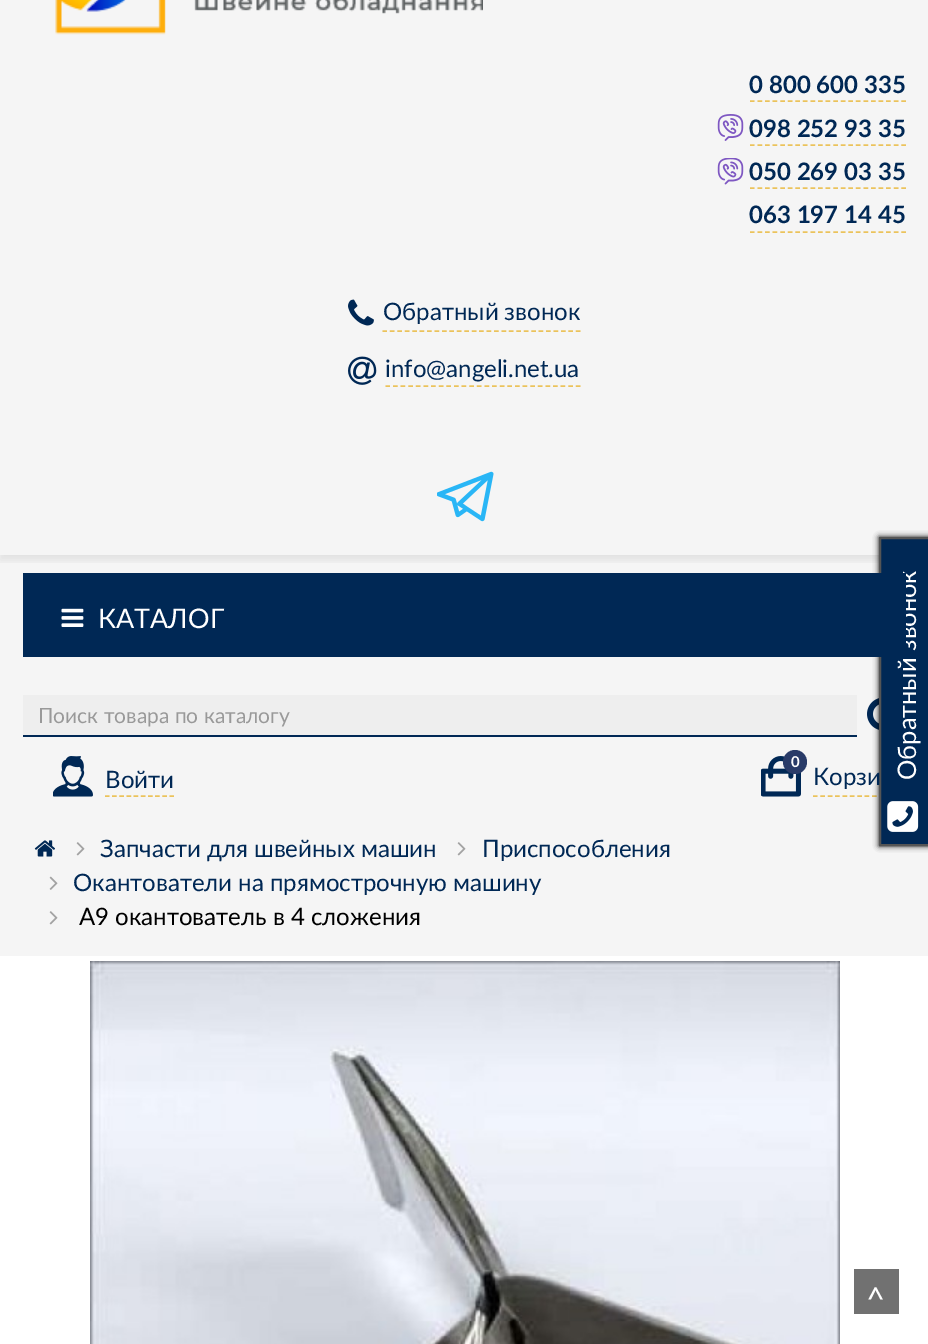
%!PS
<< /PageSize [928 1344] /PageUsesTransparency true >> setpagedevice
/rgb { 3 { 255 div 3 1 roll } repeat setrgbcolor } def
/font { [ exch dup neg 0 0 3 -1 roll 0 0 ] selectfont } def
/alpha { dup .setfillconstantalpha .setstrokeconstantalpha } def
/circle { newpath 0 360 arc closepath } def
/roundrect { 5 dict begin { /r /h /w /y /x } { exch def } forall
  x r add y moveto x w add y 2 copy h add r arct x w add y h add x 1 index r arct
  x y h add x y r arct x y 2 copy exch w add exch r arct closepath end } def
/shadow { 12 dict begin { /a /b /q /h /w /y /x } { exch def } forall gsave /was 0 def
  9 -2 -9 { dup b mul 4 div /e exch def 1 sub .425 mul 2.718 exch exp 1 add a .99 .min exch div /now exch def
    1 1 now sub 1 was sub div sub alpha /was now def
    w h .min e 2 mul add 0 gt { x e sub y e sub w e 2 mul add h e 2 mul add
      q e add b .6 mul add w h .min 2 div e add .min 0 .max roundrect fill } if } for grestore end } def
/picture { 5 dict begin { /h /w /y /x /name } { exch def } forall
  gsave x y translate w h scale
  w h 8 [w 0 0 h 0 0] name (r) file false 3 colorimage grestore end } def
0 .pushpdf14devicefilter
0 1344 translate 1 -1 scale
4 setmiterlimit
245 245 245 rgb
0 0 928 1344 rectfill
(img/1.rgb) 55 0 428 35 picture
235 195 91 rgb
1.5 setlinewidth
[4.5 3.07] 0 setdash
750 101 moveto 906 101 lineto stroke
(img/2.rgb) 717 114 27 27 picture
750 145 moveto 906 145 lineto stroke
(img/3.rgb) 717 158 27 27 picture
750 188 moveto 906 188 lineto stroke
750 232 moveto 906 232 lineto stroke
(img/4.rgb) 348 299 26 27 picture
[4.5 2.94] 0 setdash
382.5 331 moveto 580.5 331 lineto stroke
(img/5.rgb) 348 356 29 29 picture
[4.5 3.12] 0 setdash
385.5 386 moveto 580.5 386 lineto stroke
(img/6.rgb) 437 471 57 51 picture
gsave
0 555 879 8 rectclip
0 0 0 rgb
0 -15 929 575 0 5 0.08 shadow
grestore
238 238 238 rgb
23 695 834 40 rectfill
0 40 85 rgb
23 735 834 2 rectfill
(img/8.rgb) 867 698 12 32 picture
(img/9.rgb) 53 756 40 41 picture
235 195 91 rgb
[4.5 2.67] 0 setdash
105 796 moveto 174 796 lineto stroke
(img/10.rgb) 761 756 40 41 picture
41 59 104 rgb
795 762 12 circle fill
235 195 91 rgb
[4.5 2.88] 0 setdash
813 796 moveto 906 796 lineto stroke
0 0 0 rgb
879 537 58 309 0 3 1 shadow
0 40 85 rgb
880 538 moveto 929 538 lineto 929 845 lineto 880 845 lineto closepath gsave fill grestore
85 85 85 rgb
2 setlinewidth
[] 0 setdash
stroke
(img/11.rgb) 887 801 32 31 picture
(img/12.rgb) 34 840 21 17 picture
(img/13.rgb) 76 842 9 14 picture
(img/13.rgb) 457 842 9 14 picture
(img/14.rgb) 49 876 9 14 picture
(img/13.rgb) 49 911 9 14 picture
255 255 255 rgb
0 956 928 388 rectfill
(img/15.rgb) 90 961 750 383 picture
113 113 113 rgb
854 1269 45 45 rectfill
/Lato-Bold 24 font
0 40 85 rgb
[
  [(0 800 600 335) 749 93]
  [(098 252 93 35) 749 137]
  [(050 269 03 35) 749 180]
  [(063 197 14 45) 749 223]
] { aload pop moveto show } forall
/Lato-Regular 24 font
383 320 moveto (Обратный звонок) show
385 377 moveto (info@angeli.net.ua) show
/Lato-Regular 21 font
153 153 153 rgb
38 723 moveto (Поиск товара по каталогу) show
/Lato-Regular 24 font
0 40 85 rgb
105 788 moveto (Войти) show
/Lato-Bold 15 font
255 255 255 rgb
791 767 moveto (0) show
/Lato-Regular 24 font
0 40 85 rgb
813 785 moveto (Корзи) show
/Lato-Regular 25.5 font
255 255 255 rgb
gsave 916 780 translate -90 rotate 0 0 moveto (Обратный звонок) show grestore
0 40 85 rgb
23 573 883 84 rectfill
/Lato-Regular 27 font
255 255 255 rgb
98 628 moveto (КАТАЛОГ) show
(img/7.rgb) 61 608 23 19 picture
/Lato-Regular 24 font
0 40 85 rgb
[
  [(Запчасти для швейных машин) 100 857]
  [(Приспособления) 482 857]
  [(Окантователи на прямострочную машину) 73 891]
] { aload pop moveto show } forall
0 0 0 rgb
79 925 moveto (A9 окантователь в 4 сложения) show
/Lato-Regular 33 font
255 255 255 rgb
866 1311 moveto (^) show
.poppdf14devicefilter showpage
